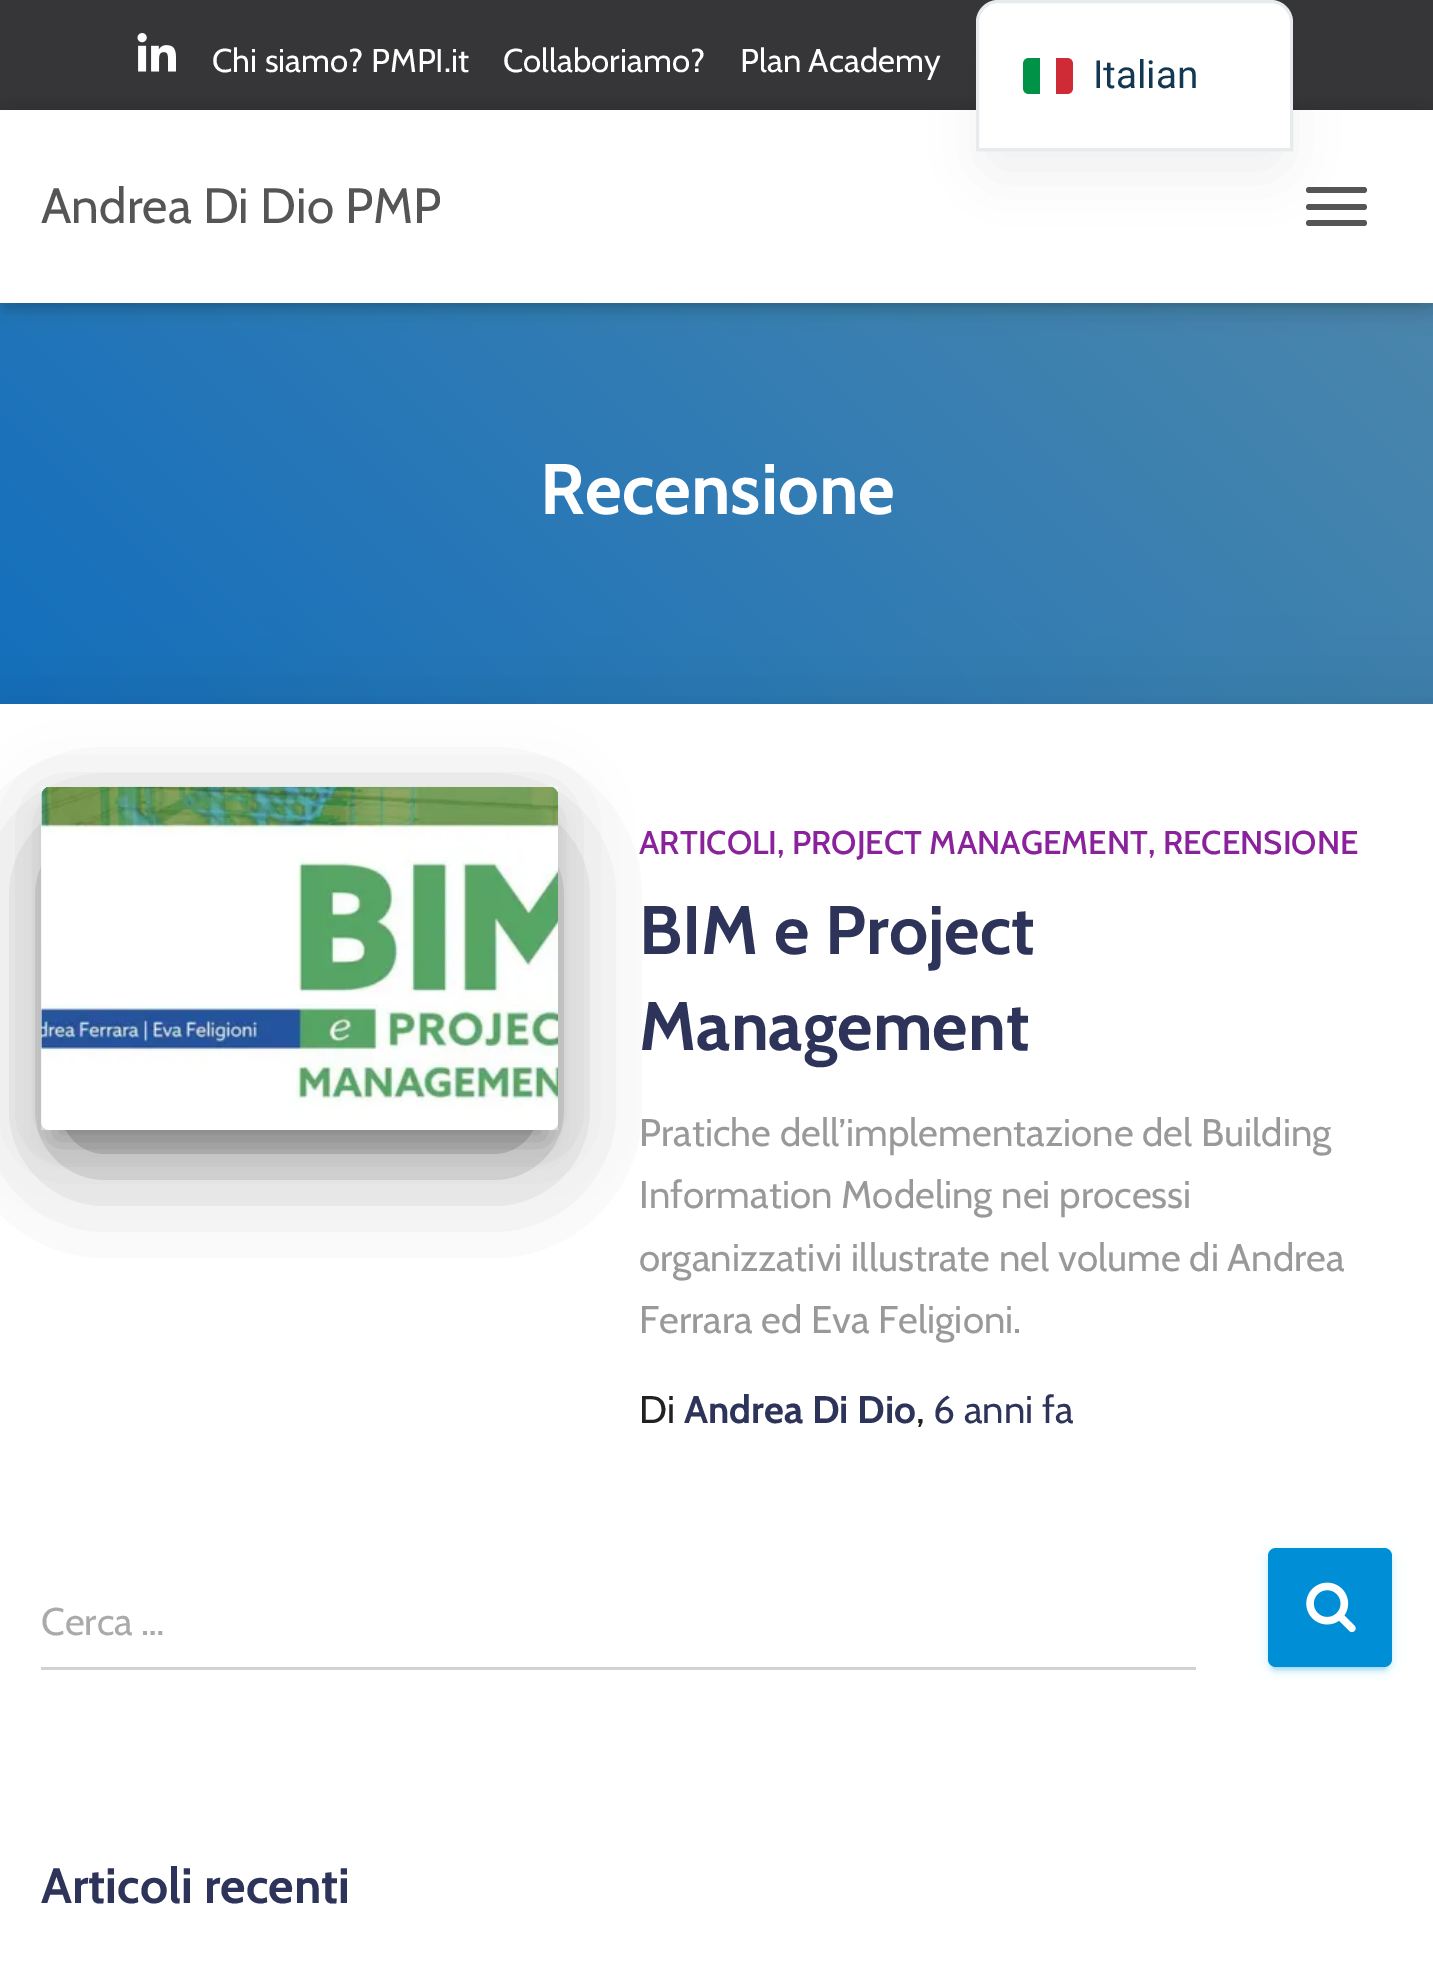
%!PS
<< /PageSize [1433 1964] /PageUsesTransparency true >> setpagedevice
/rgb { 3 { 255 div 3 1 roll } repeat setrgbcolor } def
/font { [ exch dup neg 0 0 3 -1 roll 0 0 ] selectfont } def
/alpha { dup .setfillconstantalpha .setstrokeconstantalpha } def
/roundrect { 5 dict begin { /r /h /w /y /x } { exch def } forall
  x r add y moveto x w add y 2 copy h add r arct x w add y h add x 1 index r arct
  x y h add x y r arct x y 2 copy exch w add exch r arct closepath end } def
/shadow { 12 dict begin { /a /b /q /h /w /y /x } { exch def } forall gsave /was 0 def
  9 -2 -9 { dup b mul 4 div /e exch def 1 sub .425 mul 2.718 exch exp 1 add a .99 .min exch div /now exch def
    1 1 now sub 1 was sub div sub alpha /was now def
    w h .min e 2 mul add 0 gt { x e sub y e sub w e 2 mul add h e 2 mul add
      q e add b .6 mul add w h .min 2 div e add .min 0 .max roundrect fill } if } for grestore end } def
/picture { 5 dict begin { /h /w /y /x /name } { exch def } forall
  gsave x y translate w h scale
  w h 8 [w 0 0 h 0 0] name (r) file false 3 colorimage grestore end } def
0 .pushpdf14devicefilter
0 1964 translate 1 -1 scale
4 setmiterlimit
54 53 55 rgb
0 0 1433 1964 rectfill
(img/1.rgb) 137 33 39 39 picture
gsave 0 303 moveto 1433 303 lineto 1433 704 lineto 0 704 lineto closepath clip newpath
<< /ShadingType 2 /ColorSpace /DeviceRGB /Coords [169 1038 1266 -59] /Extend [true true] /Function << /FunctionType 2 /Domain [0 1] /C0 [0.059 0.427 0.749] /C1 [0.318 0.537 0.667] /N 1 >> >> shfill grestore
0 0 0 rgb
6 127 1424 181 0 7 0.1 shadow
0 113 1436 192 0 14 0.12 shadow
17 129 1402 160 0 14 0.42 shadow
255 255 255 rgb
0 110 1433 193 rectfill
85 85 85 rgb
1306 187 61 6 3 roundrect fill
1306 204 61 6 3 roundrect fill
1306 220 61 6 3 roundrect fill
0 0 0 rgb
-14 707 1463 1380 0 41 0.12 shadow
255 255 255 rgb
0 704 1433 1260 rectfill
0 0 0 rgb
55 822 490 317 0 14 0.2 shadow
41 798 517 343 8 34.5 0.12 shadow
74 864 451 277 0 52 0.56 shadow
(img/2.rgb) 41 786 517 344 picture
210 210 210 rgb
41 1667 1155 3 rectfill
0 142 214 rgb
1268 1551 124 118 8 7 0.12 shadow
1273 1562 113 107 3 1.5 0.2 shadow
1268 1554 124 118 8 3 0.14 shadow
1268 1548 124 119 8 roundrect fill
(img/3.rgb) 1306 1582 50 51 picture
0 0 0 rgb
976 28 317 151 22 27.5 0.05 shadow
255 255 255 rgb
998 0 moveto 1271 0 lineto 1283 0 1293 10 1293 22 curveto 1293 151 lineto 976 151 lineto 976 22 lineto 976 10 986 0 998 0 curveto closepath fill
0.1 alpha
20 56 82 rgb
3 setlinewidth
998 1.5 moveto 1271 1.5 lineto 1282.5 1.5 1291.5 10.5 1291.5 22 curveto 1291.5 149.5 lineto 977.5 149.5 lineto 977.5 22 lineto 977.5 10.5 986.5 1.5 998 1.5 curveto closepath stroke
1 alpha
0 146 70 rgb
1029 58 moveto 1040 58 lineto 1040 94 lineto 1029 94 lineto 1025.5 94 1023 91.5 1023 88 curveto 1023 64 lineto 1023 60.5 1025.5 58 1029 58 curveto closepath fill
206 43 55 rgb
1056 58 moveto 1067 58 lineto 1070.5 58 1073 60.5 1073 64 curveto 1073 88 lineto 1073 91.5 1070.5 94 1067 94 curveto 1056 94 lineto closepath fill
/Cabin-Regular 33 font
255 255 255 rgb
[
  [(Chi siamo? PMPI.it) 212 72]
  [(Collaboriamo?) 503 72]
  [(Plan Academy) 740 72]
] { aload pop moveto show } forall
/Cabin-Regular 49.5 font
85 85 85 rgb
41 223 moveto (Andrea Di Dio PMP) show
/Cabin-Bold 71.5 font
255 255 255 rgb
540 514 moveto (Recensione) show
/Cabin-Medium 33 font
137 34 155 rgb
639 854 moveto (ARTICOLI, PROJECT MANAGEMENT, RECENSIONE) show
/Cabin-Bold 68.75 font
45 51 89 rgb
639 954 moveto (BIM e Project) show
639 1050 moveto (Management) show
/Cabin-Regular 38.5 font
153 153 153 rgb
[
  [(Pratiche dell’implementazione del Building) 639 1146]
  [(Information Modeling nei processi) 639 1208]
  [(organizzativi illustrate nel volume di Andrea) 639 1271]
  [(Ferrara ed Eva Feligioni.) 639 1333]
] { aload pop moveto show } forall
33 33 33 rgb
639 1423 moveto (Di) show
/Cabin-Bold 38.5 font
45 51 89 rgb
684 1423 moveto (Andrea Di Dio) show
/Cabin-Regular 38.5 font
33 33 33 rgb
916 1423 moveto (,) show
45 51 89 rgb
933 1423 moveto (6 anni fa) show
170 170 170 rgb
41 1635 moveto (Cerca …) show
/Cabin-Bold 49.5 font
45 51 89 rgb
41 1903 moveto (Articoli recenti) show
/Roboto-Regular 38.5 font
20 56 82 rgb
1093 88 moveto (Italian) show
.poppdf14devicefilter showpage
